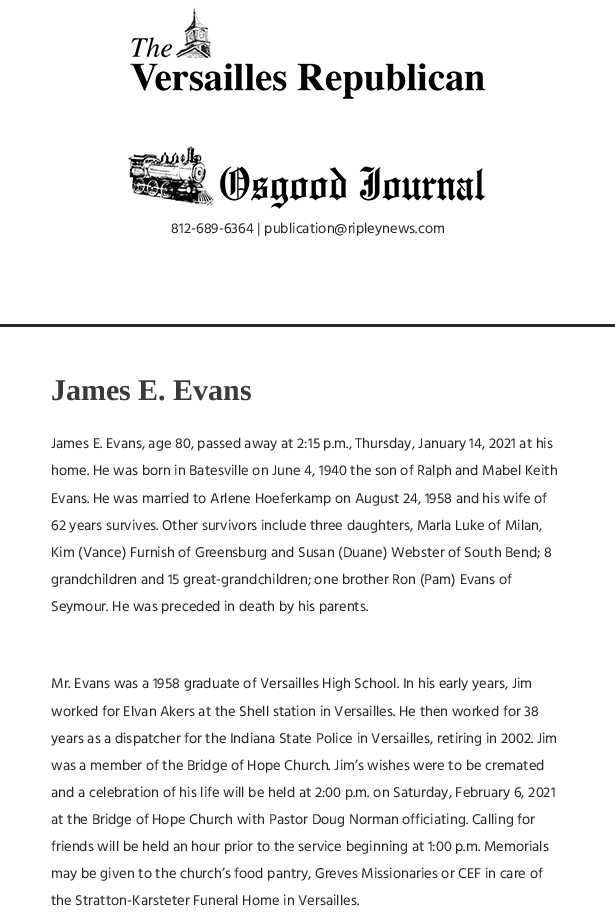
%!PS
<< /PageSize [615 919] >> setpagedevice
/rgb { 3 { 255 div 3 1 roll } repeat setrgbcolor } def
/font { [ exch dup neg 0 0 3 -1 roll 0 0 ] selectfont } def
/picture { 5 dict begin { /h /w /y /x /name } { exch def } forall
  gsave x y translate w h scale
  w h 8 [w 0 0 h 0 0] name (r) file false 3 colorimage grestore end } def
0 919 translate 1 -1 scale
4 setmiterlimit
255 255 255 rgb
0 0 615 919 rectfill
(img/1.rgb) 130 7 356 92 picture
(img/2.rgb) 128 146 358 63 picture
38 38 38 rgb
0 324 615 3 rectfill
/Hind-Regular 14.6 font
171 233 moveto (812-689-6364 | publication@ripleynews.com) show
/LiberationSerif-Bold 30 font
58 58 58 rgb
51 400 moveto (James E. Evans) show
/Hind-Regular 14.6 font
38 38 38 rgb
[
  [(James E. Evans, age 80, passed away at 2:15 p.m., Thursday, January 14, 2021 at his) 51 448]
  [(home. He was born in Batesville on June 4, 1940 the son of Ralph and Mabel Keith) 51 475]
  [(Evans. He was married to Arlene Hoeferkamp on August 24, 1958 and his wife of) 51 503]
  [(62 years survives. Other survivors include three daughters, Marla Luke of Milan,) 51 530]
  [(Kim \(Vance\) Furnish of Greensburg and Susan \(Duane\) Webster of South Bend; 8) 51 557]
  [(grandchildren and 15 great-grandchildren; one brother Ron \(Pam\) Evans of) 51 584]
  [(Seymour. He was preceded in death by his parents.) 51 611]
  [(Mr. Evans was a 1958 graduate of Versailles High School. In his early years, Jim) 51 688]
  [(worked for Elvan Akers at the Shell station in Versailles. He then worked for 38) 51 716]
  [(years as a dispatcher for the Indiana State Police in Versailles, retiring in 2002. Jim) 51 743]
  [(was a member of the Bridge of Hope Church. Jim’s wishes were to be cremated) 51 770]
  [(and a celebration of his life will be held at 2:00 p.m. on Saturday, February 6, 2021) 51 797]
  [(at the Bridge of Hope Church with Pastor Doug Norman officiating. Calling for) 51 824]
  [(friends will be held an hour prior to the service beginning at 1:00 p.m. Memorials) 51 851]
  [(may be given to the church’s food pantry, Greves Missionaries or CEF in care of) 51 878]
  [(the Stratton-Karsteter Funeral Home in Versailles.) 51 905]
] { aload pop moveto show } forall
showpage
